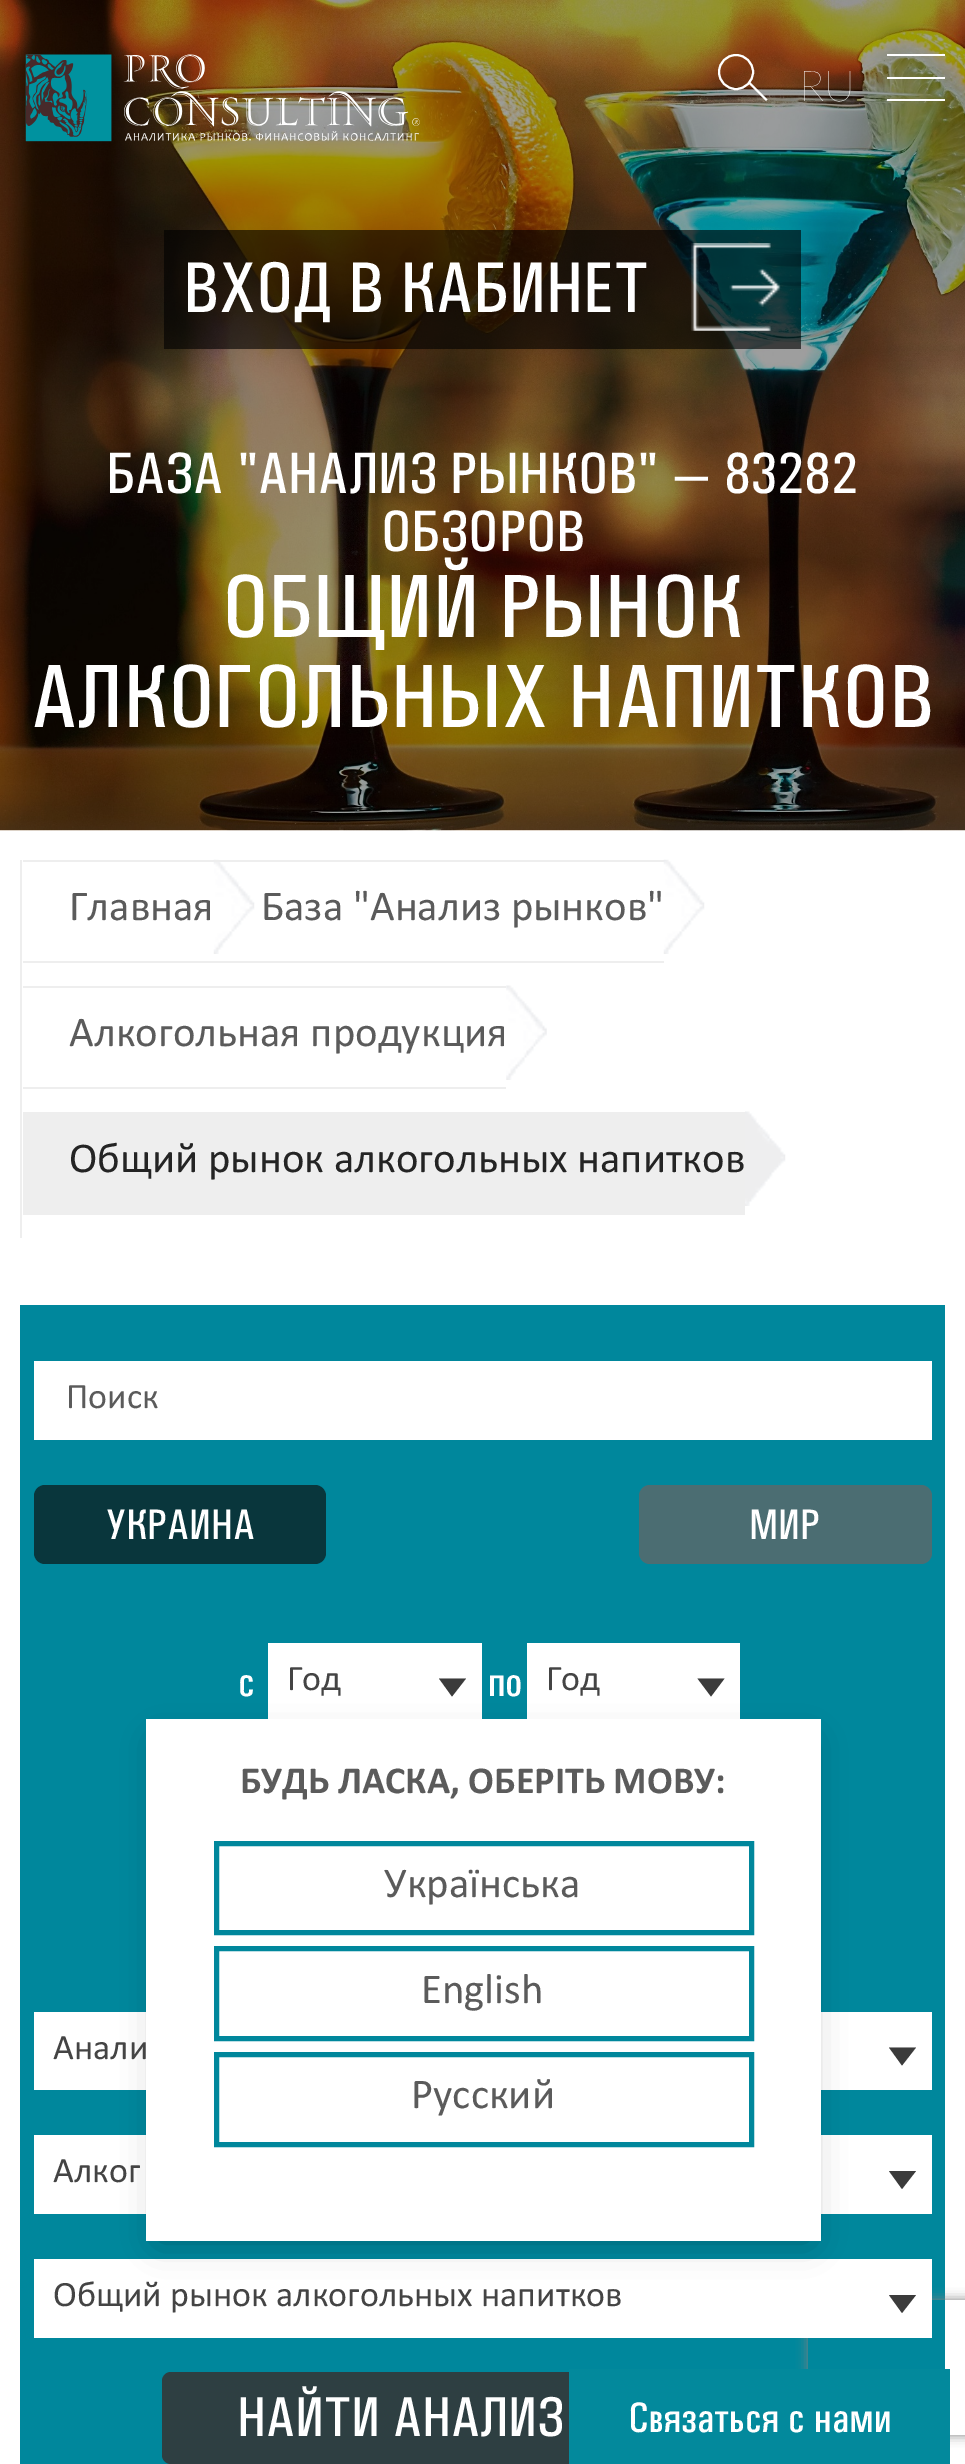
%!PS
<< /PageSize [965 2464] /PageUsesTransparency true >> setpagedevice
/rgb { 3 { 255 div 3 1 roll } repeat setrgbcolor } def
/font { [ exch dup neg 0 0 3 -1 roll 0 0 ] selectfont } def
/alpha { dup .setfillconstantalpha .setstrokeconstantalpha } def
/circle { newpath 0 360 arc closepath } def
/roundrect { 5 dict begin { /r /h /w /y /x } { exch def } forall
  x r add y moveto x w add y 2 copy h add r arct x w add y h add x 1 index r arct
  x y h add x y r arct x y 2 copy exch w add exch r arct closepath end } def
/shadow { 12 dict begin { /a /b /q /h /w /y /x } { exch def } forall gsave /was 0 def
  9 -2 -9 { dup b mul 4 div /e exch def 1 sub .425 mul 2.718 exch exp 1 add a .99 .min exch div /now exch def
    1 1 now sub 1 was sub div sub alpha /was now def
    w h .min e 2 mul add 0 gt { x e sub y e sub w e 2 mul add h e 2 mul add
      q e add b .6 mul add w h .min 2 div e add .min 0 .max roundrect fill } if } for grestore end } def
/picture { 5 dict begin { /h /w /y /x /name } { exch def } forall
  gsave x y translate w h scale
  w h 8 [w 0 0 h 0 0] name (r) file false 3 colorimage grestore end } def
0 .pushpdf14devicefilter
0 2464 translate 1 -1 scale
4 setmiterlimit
255 255 255 rgb
0 0 965 2464 rectfill
(img/3.rgb) 0 0 965 831 picture
(img/1.rgb) 25 54 395 88 picture
2 setlinewidth
736 72 17 circle stroke
750 82 moveto 767.5 99.5 lineto 766 101 lineto 748.5 83.5 lineto closepath fill
[
  [887 54 58 2 255 255 255]
  [887 77 58 2 255 255 255]
  [887 99 58 2 255 255 255]
] { aload pop rgb rectfill } forall
0.61 alpha
[
  [164 230 637 119 0 0 0]
] { aload pop rgb rectfill } forall
1 alpha
(img/2.rgb) 691 243 90 88 picture
[
  [20 860 2 378 238 238 238]
  [23 860 191 2 238 238 238]
  [23 961 641 2 238 238 238]
] { aload pop rgb rectfill } forall
(img/4.rgb) 213 859 42 95 picture
214 860 450 2 rectfill
(img/4.rgb) 663 859 42 95 picture
23 986 483 2 rectfill
23 1087 483 2 rectfill
(img/5.rgb) 506 985 41 95 picture
23 1112 722 103 rectfill
(img/6.rgb) 745 1111 41 95 picture
0 135 156 rgb
20 1305 925 1159 rectfill
255 255 255 rgb
34 1361 898 79 rectfill
9 54 60 rgb
34 1485 292 79 11 roundrect fill
75 109 114 rgb
639 1485 293 79 11 roundrect fill
255 255 255 rgb
268 1643 214 76 rectfill
59 59 59 rgb
439 1678.5 moveto 466 1678.5 lineto 452 1696.5 lineto closepath fill
255 255 255 rgb
527 1643 213 76 rectfill
59 59 59 rgb
697.5 1678.5 moveto 724.5 1678.5 lineto 711 1696.5 lineto closepath fill
255 255 255 rgb
34 2012 898 78 rectfill
59 59 59 rgb
889 2047.5 moveto 916 2047.5 lineto 902 2065.5 lineto closepath fill
255 255 255 rgb
34 2135 898 79 rectfill
59 59 59 rgb
889 2171 moveto 916 2171 lineto 902 2189 lineto closepath fill
gsave
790 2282 moveto 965 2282 lineto 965 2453 lineto 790 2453 lineto closepath 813 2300 moveto 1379 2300 lineto 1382 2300 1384 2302 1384 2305 curveto 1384 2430 lineto 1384 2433 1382 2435 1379 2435 curveto 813 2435 lineto 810 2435 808 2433 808 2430 curveto 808 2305 lineto 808 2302 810 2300 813 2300 curveto closepath eoclip newpath
128 128 128 rgb
808 2300 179 135 5 5.5 1 shadow
grestore
255 255 255 rgb
34 2259 898 79 rectfill
59 59 59 rgb
889 2295 moveto 916 2295 lineto 902 2313 lineto closepath fill
46 63 66 rgb
162 2372 641 92 9 roundrect fill
255 255 255 rgb
146 1719 675 522 rectfill
gsave
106 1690 moveto 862 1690 lineto 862 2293 lineto 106 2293 lineto closepath 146 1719 moveto 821 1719 lineto 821 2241 lineto 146 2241 lineto closepath eoclip newpath
0 0 0 rgb
158 1742 652 499 0 17 0.25 shadow
grestore
0 135 156 rgb
5 setlinewidth
216.5 1843.5 535 89 rectstroke
216.5 1948.5 535 90 rectstroke
216.5 2054.5 535 90 rectstroke
3 137 156 rgb
569 2369 381 95 rectfill
/Lato-ExtraLight 42.75 font
255 255 255 rgb
799 101 moveto (RU) show
/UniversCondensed-Medium 72 font
183 312 moveto (ВХОД В КАБИНЕТ) show
/UniversCondensed-Medium 58.5 font
106 493 moveto (БАЗА "АНАЛИЗ РЫНКОВ" — 83282) show
381 551 moveto (ОБЗОРОВ) show
/UniversCondensed-Medium 90 font
222 637 moveto (ОБЩИЙ РЫНОК) show
31 727 moveto (АЛКОГОЛЬНЫХ НАПИТКОВ) show
/Calibri-Regular 42.75 font
91 91 91 rgb
[
  [(Главная) 69 920]
  [(База "Анализ рынков") 261 920]
  [(Алкогольная продукция) 69 1046]
] { aload pop moveto show } forall
36 36 36 rgb
69 1172 moveto (Общий рынок алкогольных напитков) show
/Calibri-Regular 36 font
91 91 91 rgb
66 1408 moveto (Поиск) show
/UniversCondensed-Medium 42.75 font
255 255 255 rgb
[
  [(УКРАИНА) 106 1539]
  [(МИР) 749 1539]
  [(с) 238 1696]
] { aload pop moveto show } forall
/Calibri-Regular 36 font
68 68 68 rgb
287 1690 moveto (Год) show
/UniversCondensed-Medium 42.75 font
255 255 255 rgb
488 1696 moveto (по) show
/Calibri-Regular 36 font
68 68 68 rgb
[
  [(Год) 546 1690]
  [(Анали) 53 2059]
  [(Алког) 53 2182]
  [(Общий рынок алкогольных напитков) 53 2306]
] { aload pop moveto show } forall
/UniversCondensed-Medium 56.25 font
255 255 255 rgb
237 2436 moveto (НАЙТИ АНАЛИЗ) show
/Calibri-Bold 38.25 font
91 91 91 rgb
240 1793 moveto (БУДЬ ЛАСКА, ОБЕРІТЬ МОВУ:) show
/Calibri-Regular 42.75 font
[
  [(Українська) 384 1897]
  [(English) 421 2003]
  [(Русский) 411 2108]
] { aload pop moveto show } forall
/UniversCondensed-Medium 42.75 font
255 255 255 rgb
628 2432 moveto (Связаться с нами) show
.poppdf14devicefilter showpage
